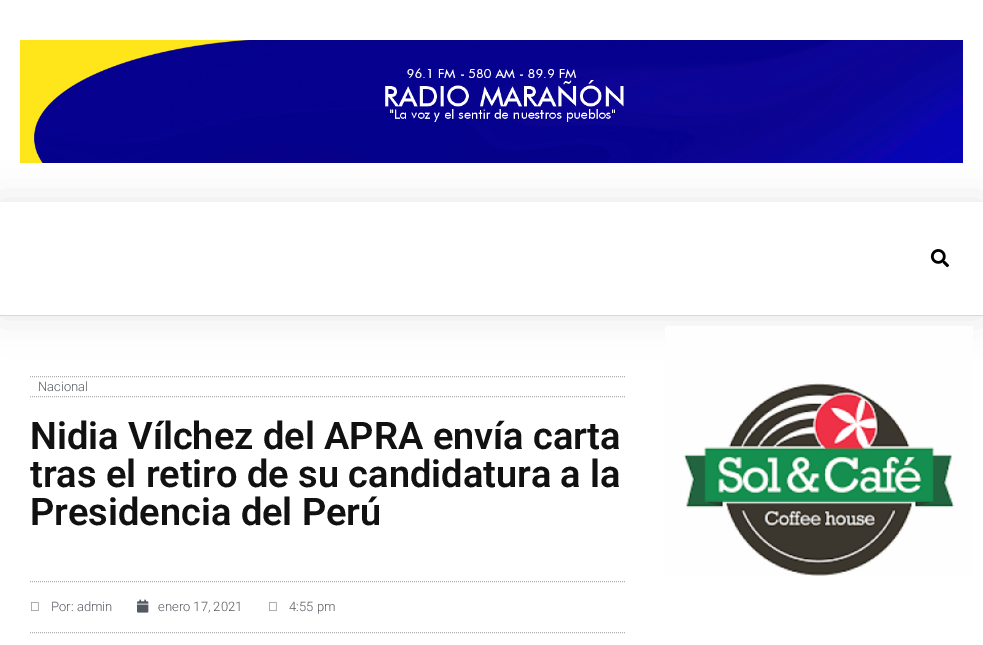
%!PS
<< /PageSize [983 645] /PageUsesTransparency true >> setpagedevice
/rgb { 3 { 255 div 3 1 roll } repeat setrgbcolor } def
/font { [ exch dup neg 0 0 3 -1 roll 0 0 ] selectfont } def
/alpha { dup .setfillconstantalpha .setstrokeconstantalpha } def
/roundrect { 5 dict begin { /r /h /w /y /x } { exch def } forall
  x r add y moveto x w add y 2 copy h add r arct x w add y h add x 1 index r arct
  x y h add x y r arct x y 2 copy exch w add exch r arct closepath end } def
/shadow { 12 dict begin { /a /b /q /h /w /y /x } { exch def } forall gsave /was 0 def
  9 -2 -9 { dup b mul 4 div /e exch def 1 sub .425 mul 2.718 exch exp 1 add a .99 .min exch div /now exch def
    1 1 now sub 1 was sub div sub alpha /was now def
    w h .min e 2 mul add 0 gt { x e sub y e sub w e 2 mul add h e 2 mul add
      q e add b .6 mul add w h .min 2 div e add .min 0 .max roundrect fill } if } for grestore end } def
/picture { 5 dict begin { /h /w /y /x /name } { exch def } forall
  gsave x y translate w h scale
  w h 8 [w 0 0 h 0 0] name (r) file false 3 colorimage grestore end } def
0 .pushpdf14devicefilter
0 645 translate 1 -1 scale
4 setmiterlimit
255 255 255 rgb
0 0 983 645 rectfill
(img/1.rgb) 20 40 943 123 picture
0 0 0 rgb
0 202 983 114 0 19 0.1 shadow
255 255 255 rgb
0 202 983 113 rectfill
216 216 216 rgb
0 315 983 1 rectfill
(img/2.rgb) 930 249 19 19 picture
175 175 175 rgb
[1 1] 0 setdash
30 376.5 moveto 625 376.5 lineto stroke
30 396.5 moveto 625 396.5 lineto stroke
30 581.5 moveto 625 581.5 lineto stroke
30 632.5 moveto 625 632.5 lineto stroke
(img/3.rgb) 31 602 8 9 picture
(img/4.rgb) 137 599 12 14 picture
(img/3.rgb) 269 602 8 9 picture
(img/5.rgb) 665 326 308 250 picture
/Roboto-Light 13 font
84 89 95 rgb
38 391 moveto (Nacional) show
/Roboto-SemiBold 38 font
17 17 17 rgb
[
  [(Nidia Vílchez del APRA envía carta) 30 449]
  [(tras el retiro de su candidatura a la) 30 487]
  [(Presidencia del Perú) 30 525]
] { aload pop moveto show } forall
/Roboto-Light 13 font
84 89 95 rgb
[
  [(Por: admin) 51 611]
  [(enero 17, 2021) 158 611]
  [(4:55 pm) 289 611]
] { aload pop moveto show } forall
.poppdf14devicefilter showpage
